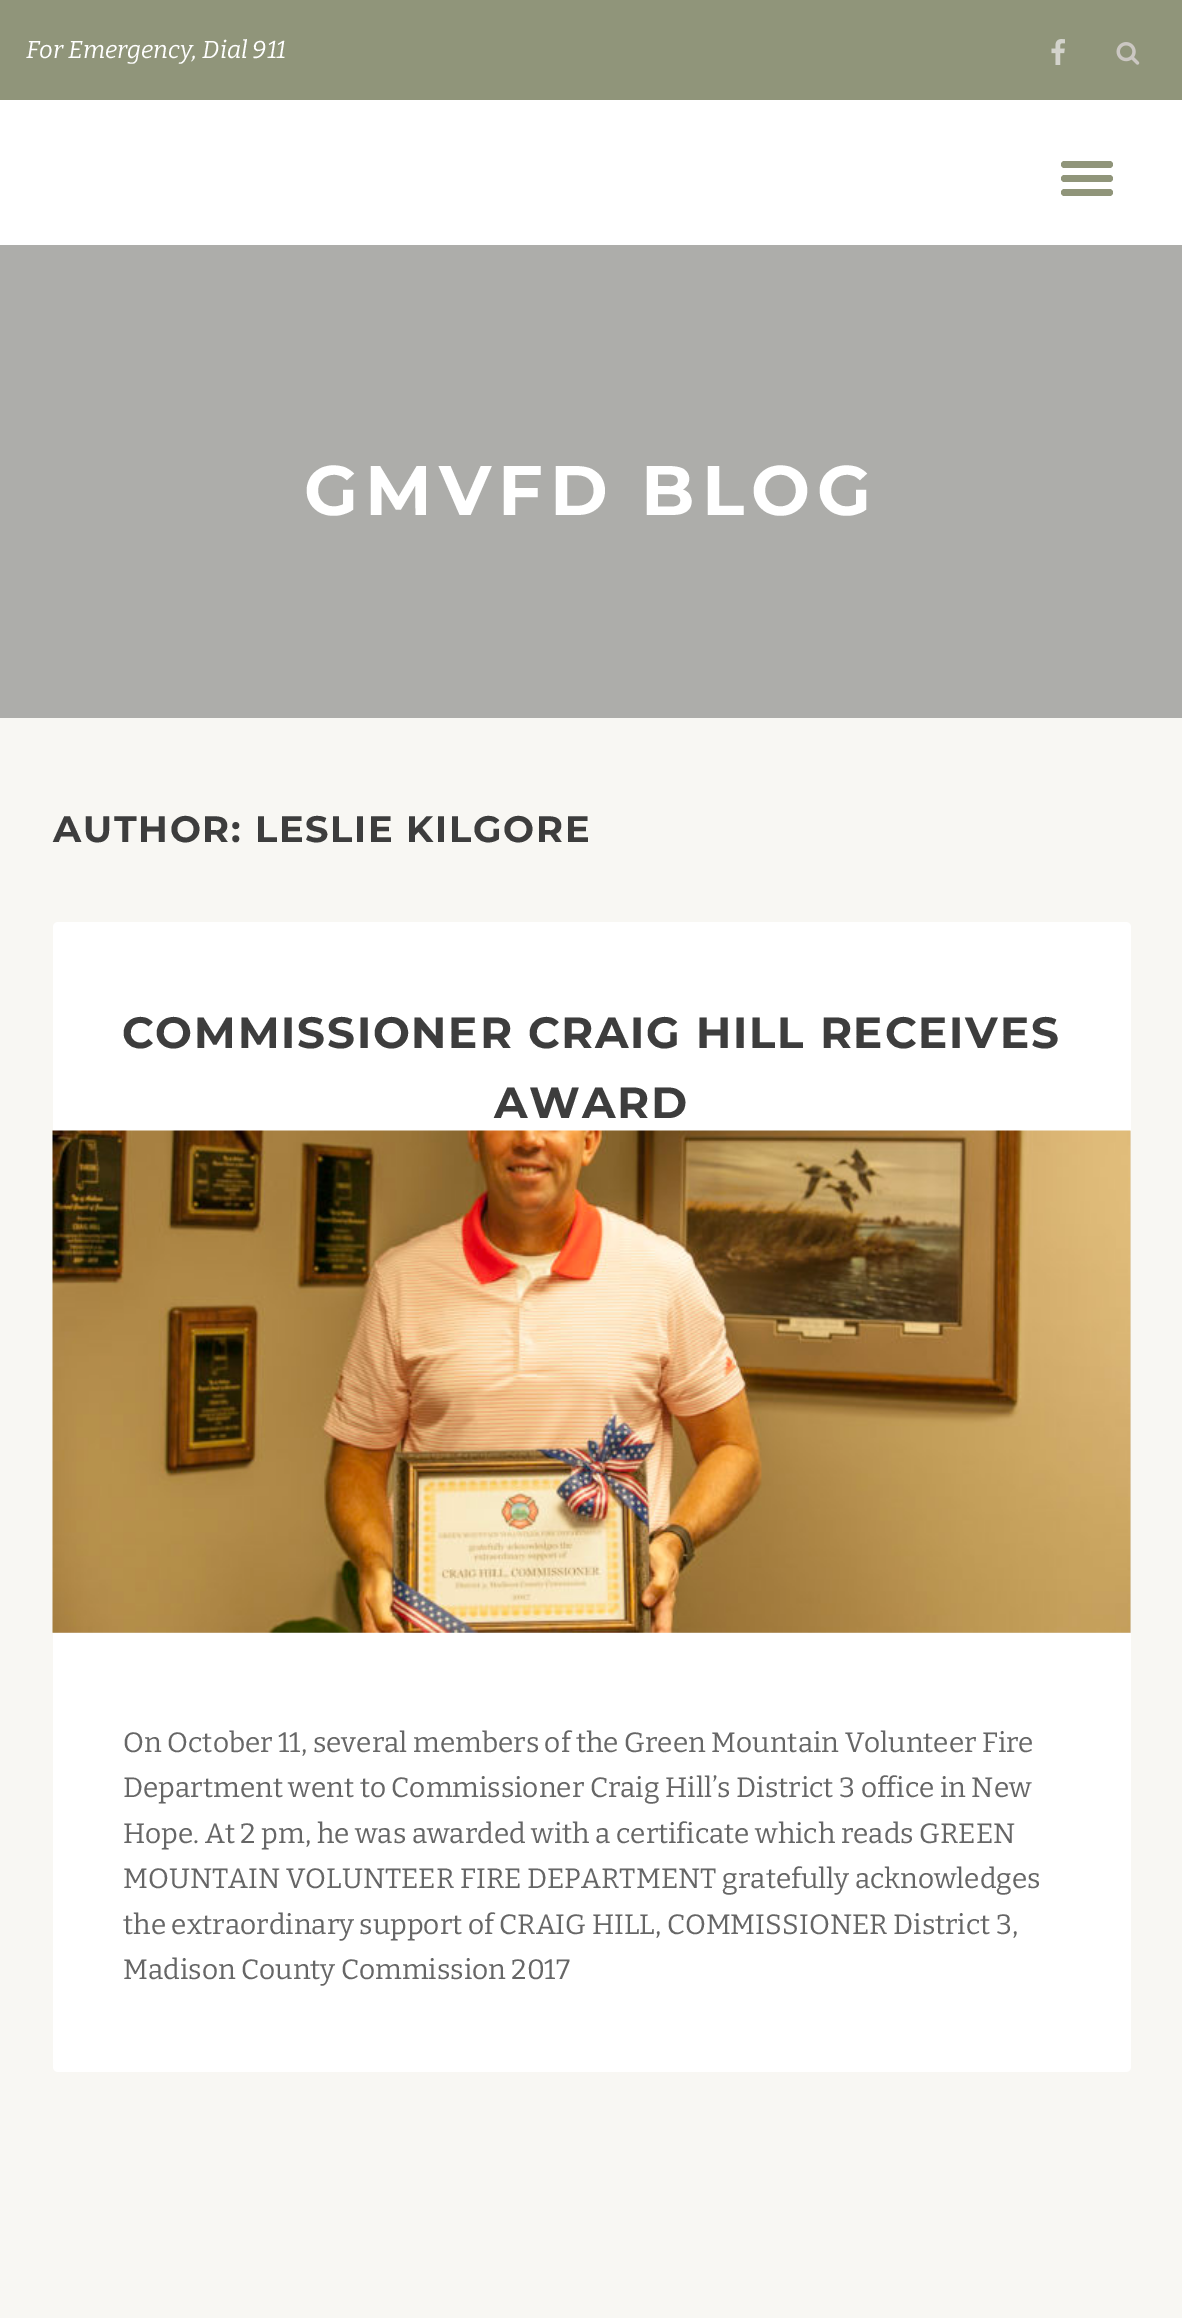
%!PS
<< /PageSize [1182 2318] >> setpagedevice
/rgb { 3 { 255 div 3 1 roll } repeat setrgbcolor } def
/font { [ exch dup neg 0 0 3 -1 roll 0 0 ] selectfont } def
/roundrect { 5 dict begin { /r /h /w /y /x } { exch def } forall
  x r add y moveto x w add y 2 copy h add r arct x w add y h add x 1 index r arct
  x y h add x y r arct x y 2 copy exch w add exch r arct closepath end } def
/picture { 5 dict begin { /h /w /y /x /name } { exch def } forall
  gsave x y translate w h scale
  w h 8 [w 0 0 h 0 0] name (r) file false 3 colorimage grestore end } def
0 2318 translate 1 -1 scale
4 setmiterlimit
248 247 243 rgb
0 0 1182 2318 rectfill
255 255 255 rgb
0 100 1182 145 rectfill
144 149 122 rgb
0 0 1182 100 rectfill
(img/1.rgb) 1051 39 14 26 picture
(img/2.rgb) 1116 42 24 23 picture
1061 161 52 7 3.5 roundrect fill
1061 175 52 7 3.5 roundrect fill
1061 189 52 7 3.5 roundrect fill
173 173 170 rgb
0 245 1182 473 rectfill
255 255 255 rgb
53 922 1078 1150 5 roundrect fill
234 234 234 rgb
53 1131 1078 502 rectfill
(img/3.rgb) 52 1130 1079 503 picture
/Bitter-ThinItalic 24.5 font
255 255 255 rgb
26 58 moveto (For Emergency, Dial 911) show
/Montserrat-Bold 70 font
304 515 moveto 7 0 (GMVFD BLOG) ashow
/Montserrat-Bold 36.75 font
61 61 61 rgb
53 842 moveto 1.75 0 (AUTHOR: LESLIE KILGORE) ashow
/Montserrat-Bold 43.75 font
122 1048 moveto 1.75 0 (COMMISSIONER CRAIG HILL RECEIVES) ashow
494 1118 moveto 1.75 0 (AWARD) ashow
/Bitter-Thin 28 font
102 102 102 rgb
[
  [(On October 11, several members of the Green Mountain Volunteer Fire) 123 1752]
  [(Department went to Commissioner Craig Hill’s District 3 office in New) 123 1797]
  [(Hope. At 2 pm, he was awarded with a certificate which reads GREEN) 123 1843]
  [(MOUNTAIN VOLUNTEER FIRE DEPARTMENT gratefully acknowledges) 123 1888]
  [(the extraordinary support of CRAIG HILL, COMMISSIONER District 3,) 123 1934]
  [(Madison County Commission 2017) 123 1979]
] { aload pop moveto show } forall
showpage
